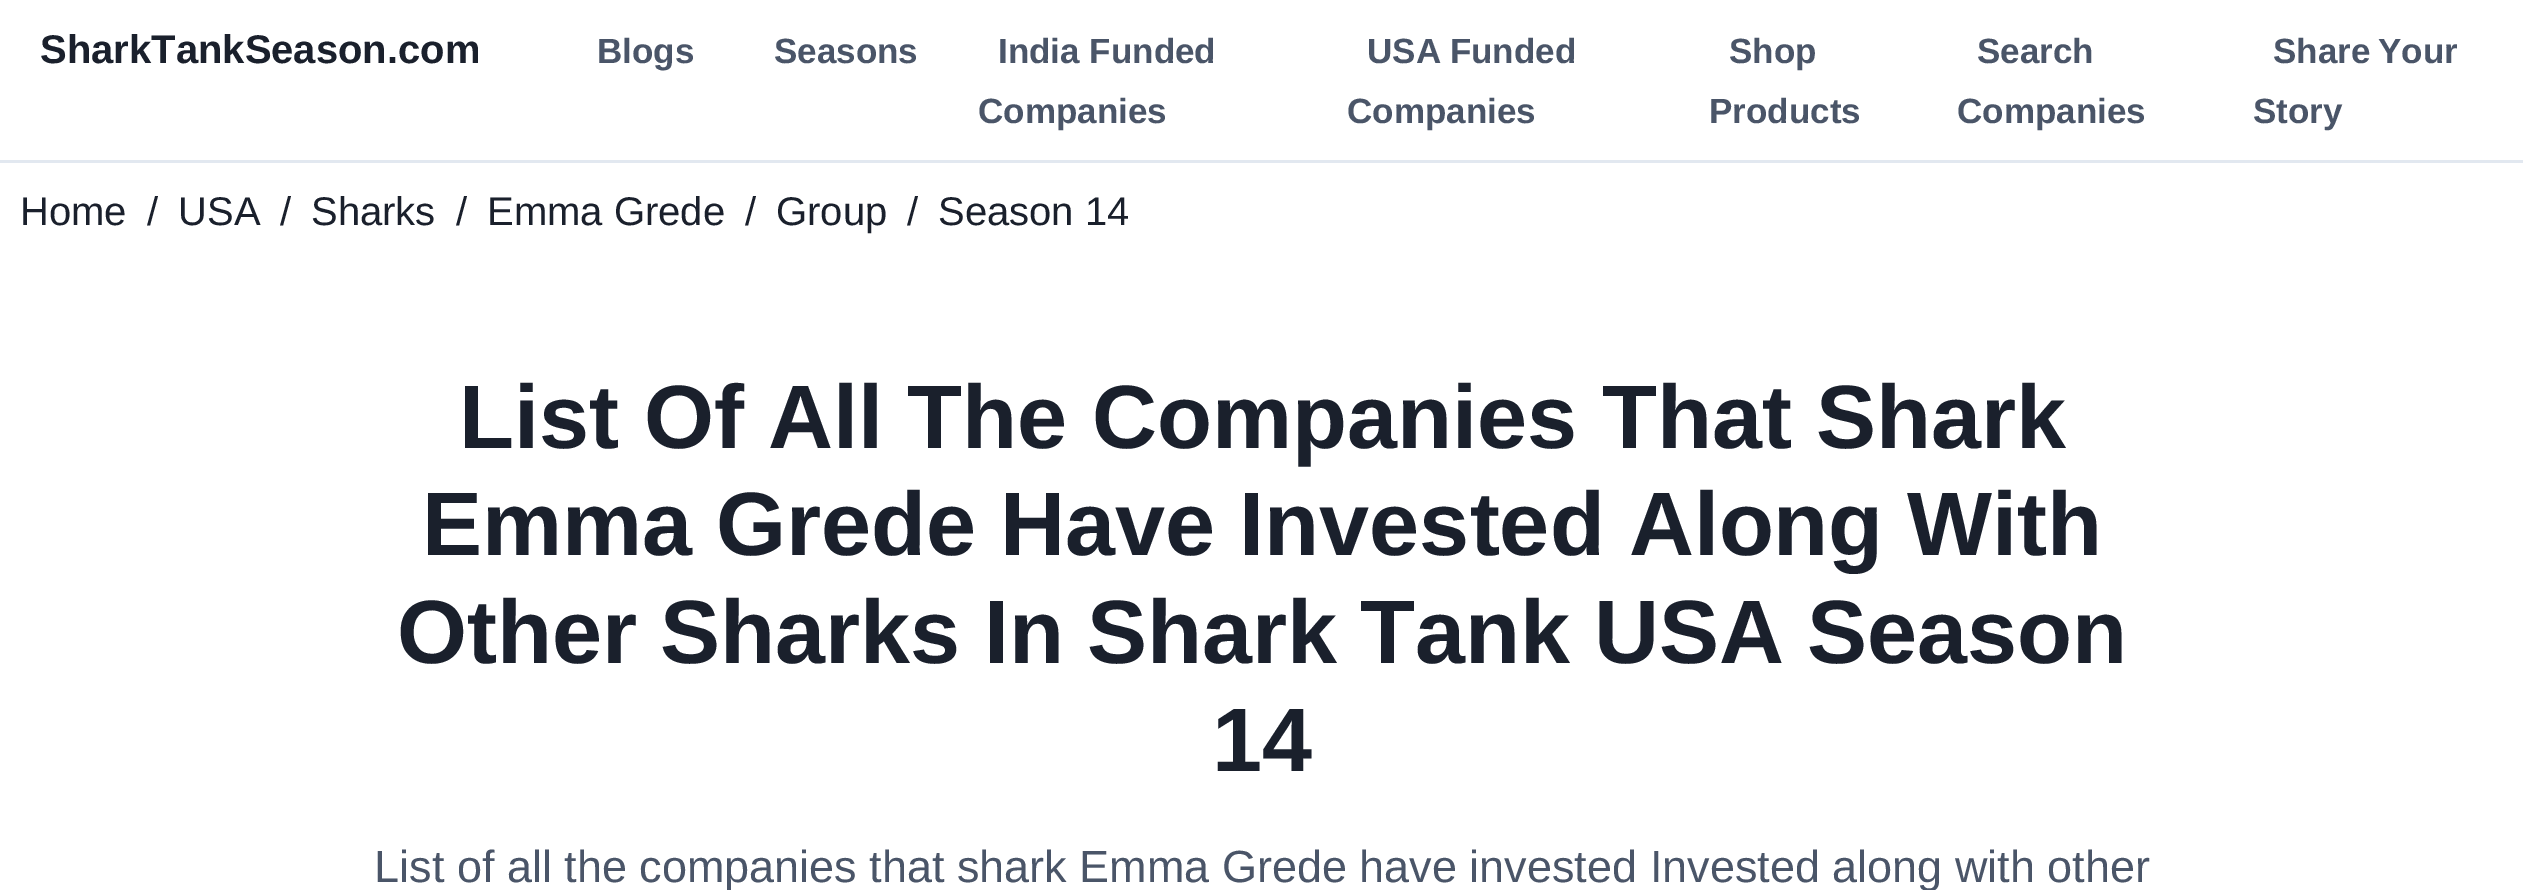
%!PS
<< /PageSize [2523 890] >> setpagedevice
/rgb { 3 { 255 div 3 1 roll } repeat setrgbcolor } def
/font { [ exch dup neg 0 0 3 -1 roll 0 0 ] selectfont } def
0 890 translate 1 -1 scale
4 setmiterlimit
255 255 255 rgb
0 0 2523 890 rectfill
226 232 240 rgb
0 160 2523 3 rectfill
/LiberationSans-Bold 40 font
26 32 44 rgb
40 63 moveto (SharkTankSeason.com) show
/LiberationSans-Bold 35 font
74 85 104 rgb
[
  [(Blogs) 597 63]
  [(Seasons) 774 63]
  [(India Funded) 998 63]
  [(Companies) 978 123]
] { aload pop moveto show } forall
1367 63 moveto -1 0 32 (USA Funded) widthshow
[
  [(Companies) 1347 123]
  [(Shop) 1729 63]
  [(Products) 1709 123]
  [(Search) 1977 63]
  [(Companies) 1957 123]
] { aload pop moveto show } forall
2273 63 moveto -2 0 32 (Share Your) widthshow
2253 123 moveto (Story) show
/LiberationSans-Regular 40 font
26 32 44 rgb
[
  [(Home) 20 225]
  [(/) 147 225]
  [(USA) 178 225]
  [(/) 280 225]
  [(Sharks) 311 225]
  [(/) 456 225]
  [(Emma Grede) 487 225]
  [(/) 745 225]
  [(Group) 776 225]
  [(/) 907 225]
  [(Season 14) 938 225]
] { aload pop moveto show } forall
/LiberationSans-Bold 90 font
459 448 moveto -0.5 0 32 (List Of All The Companies That Shark) widthshow
422 555 moveto -1 0 32 (Emma Grede Have Invested Along With) widthshow
397 663 moveto -1.75 0 32 (Other Sharks In Shark Tank USA Season) widthshow
1212 771 moveto (14) show
/LiberationSans-Regular 45 font
74 85 104 rgb
374 882 moveto (List of all the companies that shark Emma Grede have invested Invested along with other) show
showpage
